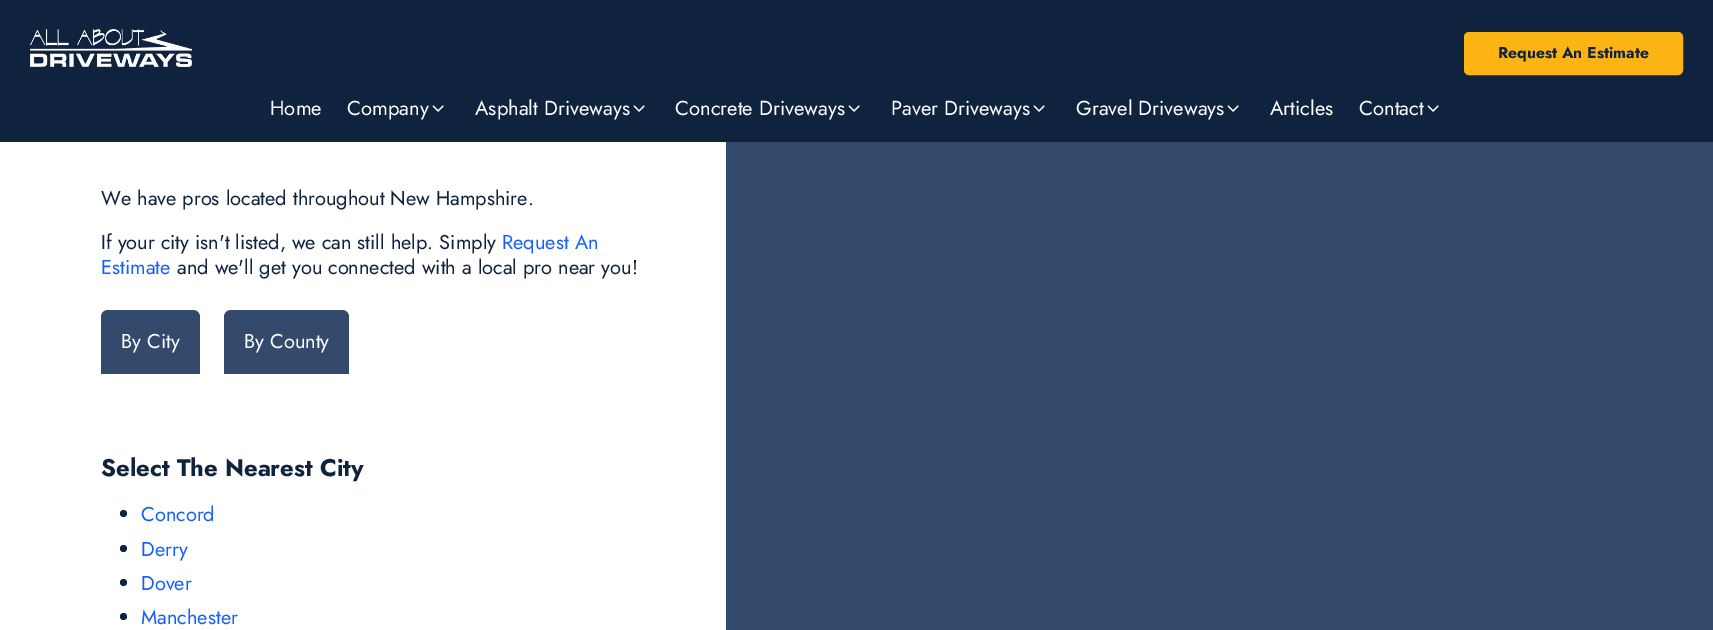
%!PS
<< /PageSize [1713 630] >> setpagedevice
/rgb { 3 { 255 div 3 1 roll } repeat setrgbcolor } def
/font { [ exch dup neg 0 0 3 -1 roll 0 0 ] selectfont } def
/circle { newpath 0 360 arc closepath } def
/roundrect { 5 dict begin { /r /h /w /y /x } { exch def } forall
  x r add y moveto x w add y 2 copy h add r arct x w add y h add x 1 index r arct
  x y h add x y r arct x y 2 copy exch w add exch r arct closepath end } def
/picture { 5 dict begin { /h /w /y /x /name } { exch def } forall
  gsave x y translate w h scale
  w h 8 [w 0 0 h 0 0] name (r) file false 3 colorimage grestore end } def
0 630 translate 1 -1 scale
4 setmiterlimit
255 255 255 rgb
0 0 1713 630 rectfill
15 35 62 rgb
0 0 1713 142 rectfill
(img/1.rgb) 30 29 162 38 picture
252 180 21 rgb
1465 33 217 41 4 roundrect gsave fill grestore
2 setlinewidth
stroke
(img/2.rgb) 432 105 12 7 picture
(img/2.rgb) 633 105 12 7 picture
(img/2.rgb) 848 105 12 7 picture
(img/2.rgb) 1033 105 12 7 picture
(img/2.rgb) 1227 105 12 7 picture
(img/2.rgb) 1427 105 12 7 picture
51 74 108 rgb
108 310 moveto 193 310 lineto 197 310 200 313 200 317 curveto 200 374 lineto 101 374 lineto 101 317 lineto 101 313 104 310 108 310 curveto closepath fill
231 310 moveto 342 310 lineto 346 310 349 313 349 317 curveto 349 374 lineto 224 374 lineto 224 317 lineto 224 313 227 310 231 310 curveto closepath fill
15 35 62 rgb
123.5 513.5 3.5 circle fill
123.5 548.5 3.5 circle fill
123.5 582.5 3.5 circle fill
123.5 616.5 3.5 circle fill
51 74 108 rgb
726 142 987 488 rectfill
/Jost-Bold 15.75 font
15 35 62 rgb
1498 58 moveto (Request An Estimate) show
/Jost-Regular 20.25 font
255 255 255 rgb
[
  [(Home) 270 115]
  [(Company) 347 115]
  [(Asphalt Driveways) 475 115]
  [(Concrete Driveways) 675 115]
  [(Paver Driveways) 891 115]
  [(Gravel Driveways) 1076 115]
  [(Articles) 1270 115]
  [(Contact) 1359 115]
] { aload pop moveto show } forall
/Jost-Regular 20 font
15 35 62 rgb
101 205 moveto (We have pros located throughout New Hampshire.) show
101 249 moveto (If your city isn't listed, we can still help. Simply) show
24 96 251 rgb
502 249 moveto (Request An) show
101 274 moveto (Estimate) show
15 35 62 rgb
177 274 moveto (and we'll get you connected with a local pro near you!) show
255 255 255 rgb
121 348 moveto (By City) show
244 348 moveto (By County) show
/Jost-Bold 24 font
15 35 62 rgb
101 476 moveto (Select The Nearest City) show
/Jost-Regular 20 font
24 96 251 rgb
[
  [(Concord) 141 521]
  [(Derry) 141 556]
  [(Dover) 141 590]
  [(Manchester) 141 624]
] { aload pop moveto show } forall
showpage
